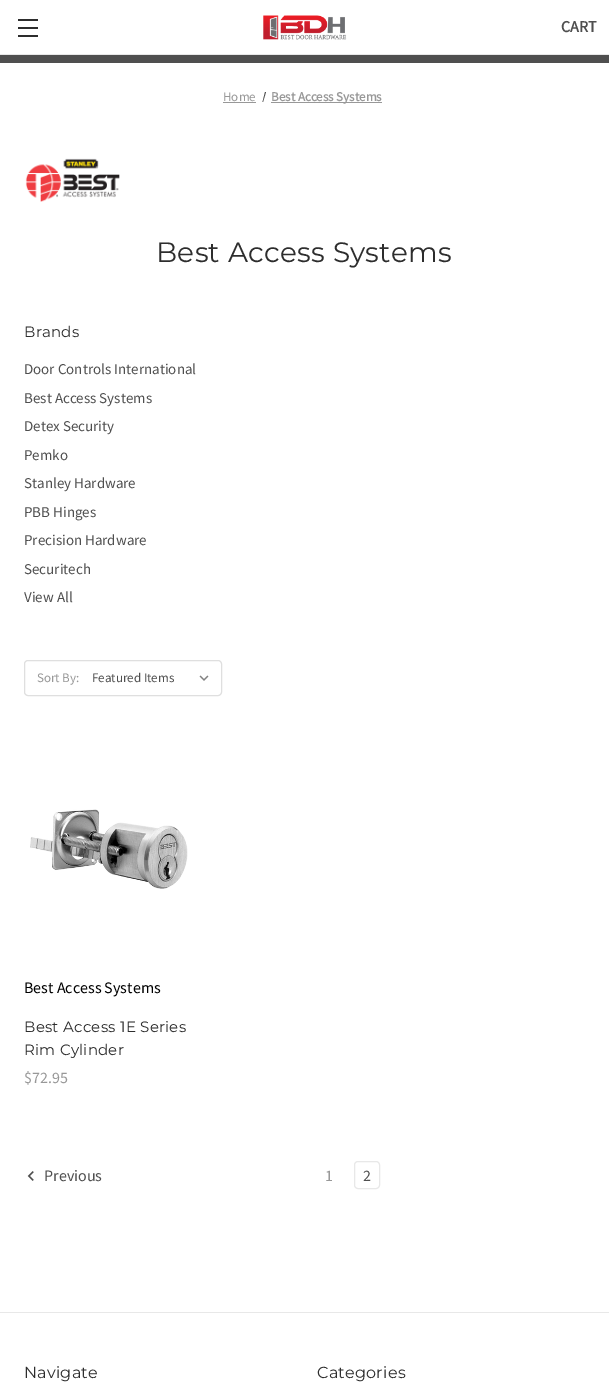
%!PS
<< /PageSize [609 1399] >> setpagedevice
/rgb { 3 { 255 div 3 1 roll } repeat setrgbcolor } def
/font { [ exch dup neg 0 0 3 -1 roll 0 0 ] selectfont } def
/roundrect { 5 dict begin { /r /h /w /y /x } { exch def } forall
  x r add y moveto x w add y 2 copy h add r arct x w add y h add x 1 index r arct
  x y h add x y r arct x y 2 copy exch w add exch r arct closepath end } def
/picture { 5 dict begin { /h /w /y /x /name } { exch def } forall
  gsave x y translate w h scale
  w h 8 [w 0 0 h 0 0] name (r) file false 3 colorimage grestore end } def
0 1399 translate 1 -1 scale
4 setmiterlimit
255 255 255 rgb
0 0 609 1399 rectfill
[
  [0 54 609 1 232 232 232]
  [18 27 20 2 45 45 45]
  [18 19 20 2 45 45 45]
  [18 35 20 2 45 45 45]
] { aload pop rgb rectfill } forall
(img/1.rgb) 263 15 84 25 picture
79 79 79 rgb
0 55 609 8 rectfill
152 152 152 rgb
223 102 33 1 rectfill
79 79 79 rgb
265 92 moveto 266 92 lineto 263 102 lineto 262.5 102 lineto closepath fill
152 152 152 rgb
271 102 111 1 rectfill
(img/2.rgb) 25 158 95 44 picture
223 223 223 rgb
24.5 660.5 197 35 3.5 roundrect stroke
(img/3.rgb) 199 675 10 6 picture
(img/4.rgb) 30 809 158 80 picture
(img/5.rgb) 27 1171 7 10 picture
232 232 232 rgb
354.5 1161.5 25 27 3.5 roundrect stroke
0 1312 609 1 rectfill
/SourceSansPro-Bold 16 font
79 79 79 rgb
561 32 moveto (CART) show
/SourceSansPro-Regular 13 font
152 152 152 rgb
223 101 moveto (Home) show
/SourceSansPro-Bold 13 font
271 101 moveto (Best Access Systems) show
/Montserrat-Thin 28 font
45 45 45 rgb
156 262 moveto 0.25 0 (Best Access Systems) ashow
/Montserrat-Thin 15 font
24 337 moveto 0.25 0 (Brands) ashow
/SourceSansPro-Regular 15 font
79 79 79 rgb
[
  [(Door Controls International) 24 374]
  [(Best Access Systems) 24 403]
  [(Detex Security) 24 431]
  [(Pemko) 24 460]
  [(Stanley Hardware) 24 488]
  [(PBB Hinges) 24 517]
  [(Precision Hardware) 24 545]
  [(Securitech) 24 574]
  [(View All) 24 602]
] { aload pop moveto show } forall
/SourceSansPro-Regular 13 font
152 152 152 rgb
37 682 moveto (Sort By:) show
79 79 79 rgb
92 682 moveto (Featured Items) show
/SourceSansPro-Regular 16 font
0 0 0 rgb
24 993 moveto (Best Access Systems) show
/Montserrat-Thin 15 font
45 45 45 rgb
24 1032 moveto 0.25 0 (Best Access 1E Series) ashow
24 1055 moveto 0.25 0 (Rim Cylinder) ashow
/SourceSansPro-Regular 16 font
152 152 152 rgb
24 1083 moveto ($72.95) show
79 79 79 rgb
44 1181 moveto (Previous) show
152 152 152 rgb
325 1181 moveto (1) show
79 79 79 rgb
363 1181 moveto (2) show
/Montserrat-Thin 16 font
45 45 45 rgb
24 1378 moveto 0.25 0 (Navigate) ashow
317 1378 moveto 0.25 0 (Categories) ashow
showpage
